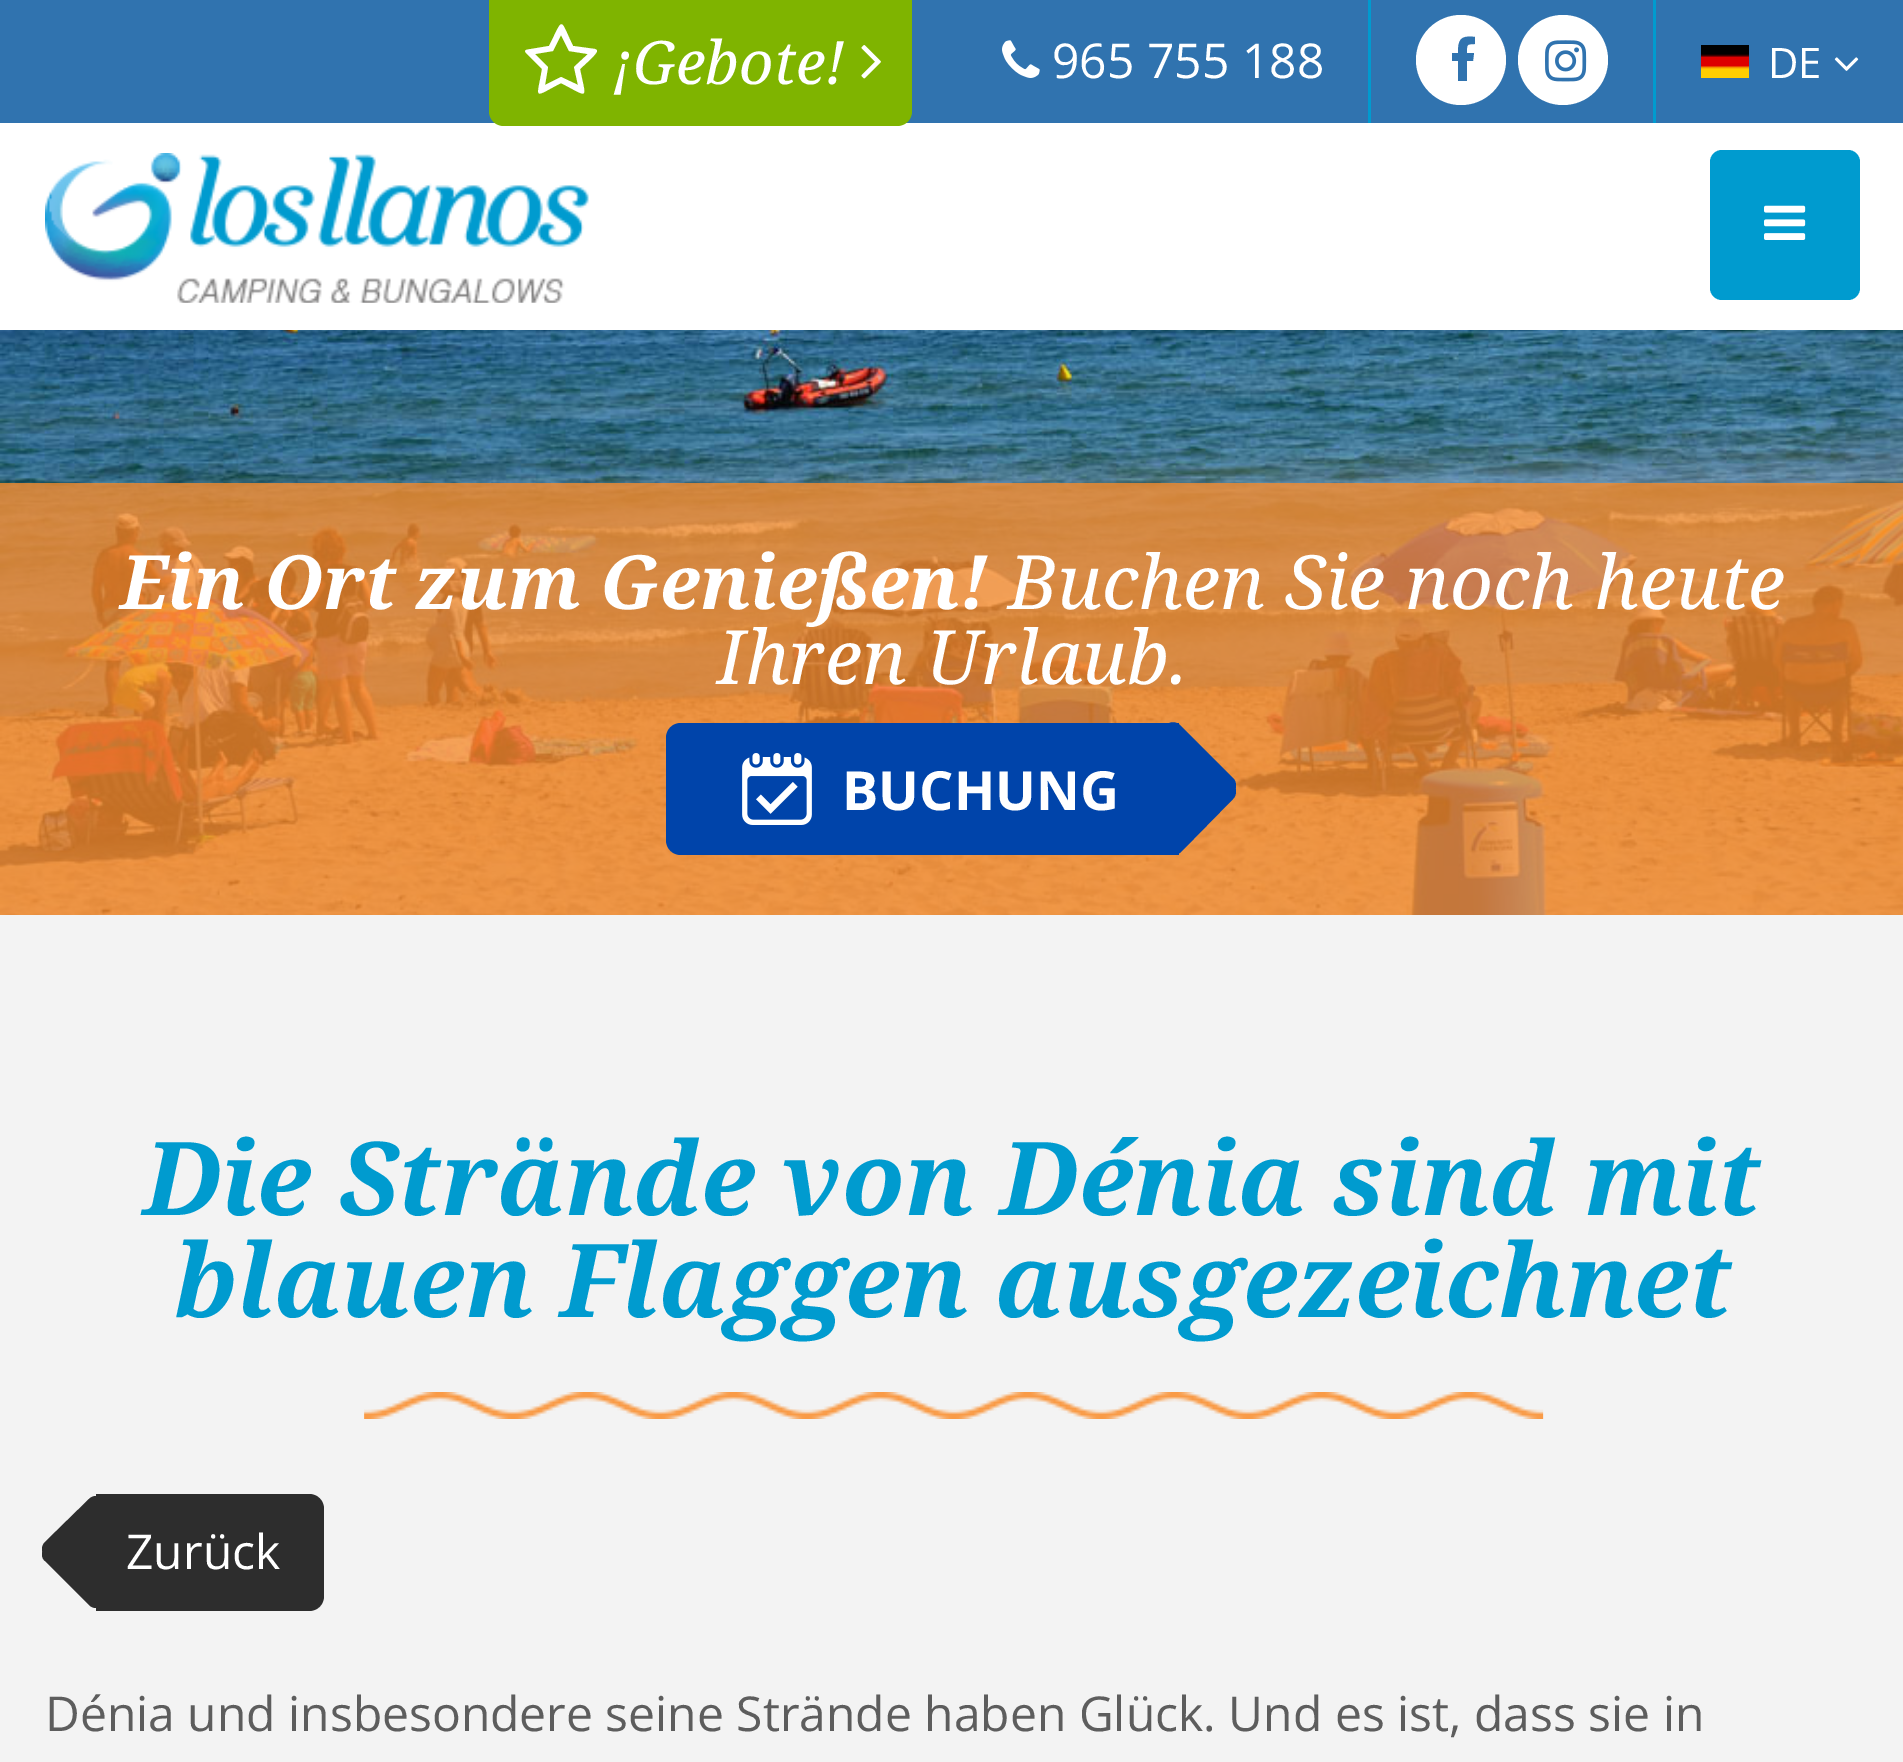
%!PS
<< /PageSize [1903 1762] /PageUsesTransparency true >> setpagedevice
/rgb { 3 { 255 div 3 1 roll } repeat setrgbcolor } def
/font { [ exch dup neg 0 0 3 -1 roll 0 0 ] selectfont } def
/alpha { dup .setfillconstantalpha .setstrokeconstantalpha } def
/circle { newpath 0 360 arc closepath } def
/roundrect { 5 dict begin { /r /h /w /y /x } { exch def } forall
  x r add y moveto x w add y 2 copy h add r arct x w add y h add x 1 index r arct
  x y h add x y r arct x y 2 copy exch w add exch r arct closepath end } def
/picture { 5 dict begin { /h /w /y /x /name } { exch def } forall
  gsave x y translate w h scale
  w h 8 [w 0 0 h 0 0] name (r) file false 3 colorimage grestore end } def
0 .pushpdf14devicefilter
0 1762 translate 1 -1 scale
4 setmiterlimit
243 243 243 rgb
0 0 1903 1762 rectfill
255 255 255 rgb
0 123 1903 207 rectfill
48 115 175 rgb
0 0 1903 123 rectfill
127 180 0 rgb
489 0 moveto 912 0 lineto 912 111 lineto 912 119.5 905.5 126 897 126 curveto 504 126 lineto 495.5 126 489 119.5 489 111 curveto closepath fill
255 255 255 rgb
574 67 moveto 588 54 lineto 569 51 lineto 561 35 lineto 553 51 lineto 535 54 lineto 548 67 lineto 545 85 lineto 561 77 lineto 578 85 lineto closepath 597 51 moveto 597 54 583 66 580 69 curveto 586 100 590 98 561 83 curveto 532 98 537 100 542 69 curveto 529 56 lineto 524 51 523 50 531 49 curveto 549 46 lineto 564 17 559 17 573 46 curveto 595 49 lineto 597 50 597 50 597 51 curveto closepath fill
(img/1.rgb) 861 45 20 34 picture
(img/2.rgb) 1002 40 38 38 picture
0 155 207 rgb
1368 0 3 123 rectfill
255 255 255 rgb
1461 60 45 circle fill
48 115 175 rgb
1475 37 moveto 1475 44 lineto 1466 44 1467 45 1467 53 curveto 1474 53 lineto 1473 61 lineto 1467 61 lineto 1467 81 lineto 1458 81 lineto 1458 61 lineto 1452 61 lineto 1452 53 lineto 1458 53 lineto 1458 40 1460 35 1475 37 curveto closepath fill
255 255 255 rgb
1563 60 45 circle fill
(img/3.rgb) 1545 40 42 42 picture
0 155 207 rgb
1653 0 3 123 rectfill
(img/4.rgb) 1701 45 48 33 picture
(img/5.rgb) 1834 57 25 14 picture
(img/6.rgb) 45 153 544 150 picture
1710 150 150 150 12 roundrect fill
(img/7.rgb) 1764 205 42 35 picture
(img/8.rgb) 0 330 1903 585 picture
0.8 alpha
244 139 45 rgb
0 483 1903 432 rectfill
1 alpha
0 68 170 rgb
681 723 moveto 1179 723 lineto 1179 855 lineto 681 855 lineto 672.5 855 666 848.5 666 840 curveto 666 738 lineto 666 729.5 672.5 723 681 723 curveto closepath fill
(img/9.rgb) 742 753 70 72 picture
1210 761 moveto 1233 784 lineto 1237 788 1237 795 1233 799 curveto 1181 852 lineto 1176 856 1170 856 1165 852 curveto 1142 829 lineto 1138 825 1138 818 1142 814 curveto 1195 761 lineto 1199 757 1206 757 1210 761 curveto closepath fill
1142 749 moveto 1165 726 lineto 1170 721 1176 721 1181 726 curveto 1233 778 lineto 1237 782 1237 789 1233 793 curveto 1210 816 lineto 1206 821 1199 821 1195 816 curveto 1142 764 lineto 1138 760 1138 753 1142 749 curveto closepath fill
(img/10.rgb) 364 1392 1180 27 picture
45 45 45 rgb
96 1494 moveto 309 1494 lineto 317.5 1494 324 1500.5 324 1509 curveto 324 1596 lineto 324 1604.5 317.5 1611 309 1611 curveto 96 1611 lineto closepath fill
102 1499 moveto 123 1519 lineto 127 1523 127 1529 123 1533 curveto 79 1576 lineto 75 1580 69 1580 66 1576 curveto 45 1556 lineto 41 1552 41 1546 45 1542 curveto 89 1499 lineto 93 1495 99 1495 102 1499 curveto closepath fill
45 1548 moveto 66 1527 lineto 69 1524 75 1524 79 1527 curveto 123 1571 lineto 127 1575 127 1581 123 1585 curveto 102 1605 lineto 99 1609 93 1609 89 1605 curveto 45 1561 lineto 41 1558 41 1551 45 1548 curveto closepath fill
/NotoSerif-Italic 60 font
255 255 255 rgb
613 84 moveto (¡Gebote!) show
/OpenSans-Regular 48 font
1052 78 moveto (965 755 188) show
/OpenSans-Regular 42 font
1768 78 moveto (DE) show
/NotoSerif-BoldItalic 75 font
120 609 moveto (Ein Ort zum Genießen!) show
/NotoSerif-Italic 75 font
1008 609 moveto (Buchen Sie noch heute) show
717 684 moveto (Ihren Urlaub.) show
/OpenSans-Bold 54 font
842 810 moveto (BUCHUNG) show
/NotoSerif-BoldItalic 102 font
0 155 207 rgb
143 1215 moveto (Die Strände von Dénia sind mit) show
174 1317 moveto (blauen Flaggen ausgezeichnet) show
/OpenSans-Regular 48 font
255 255 255 rgb
126 1569 moveto (Zurück) show
93 93 93 rgb
45 1731 moveto (Dénia und insbesondere seine Strände haben Glück. Und es ist, dass sie in) show
.poppdf14devicefilter showpage
